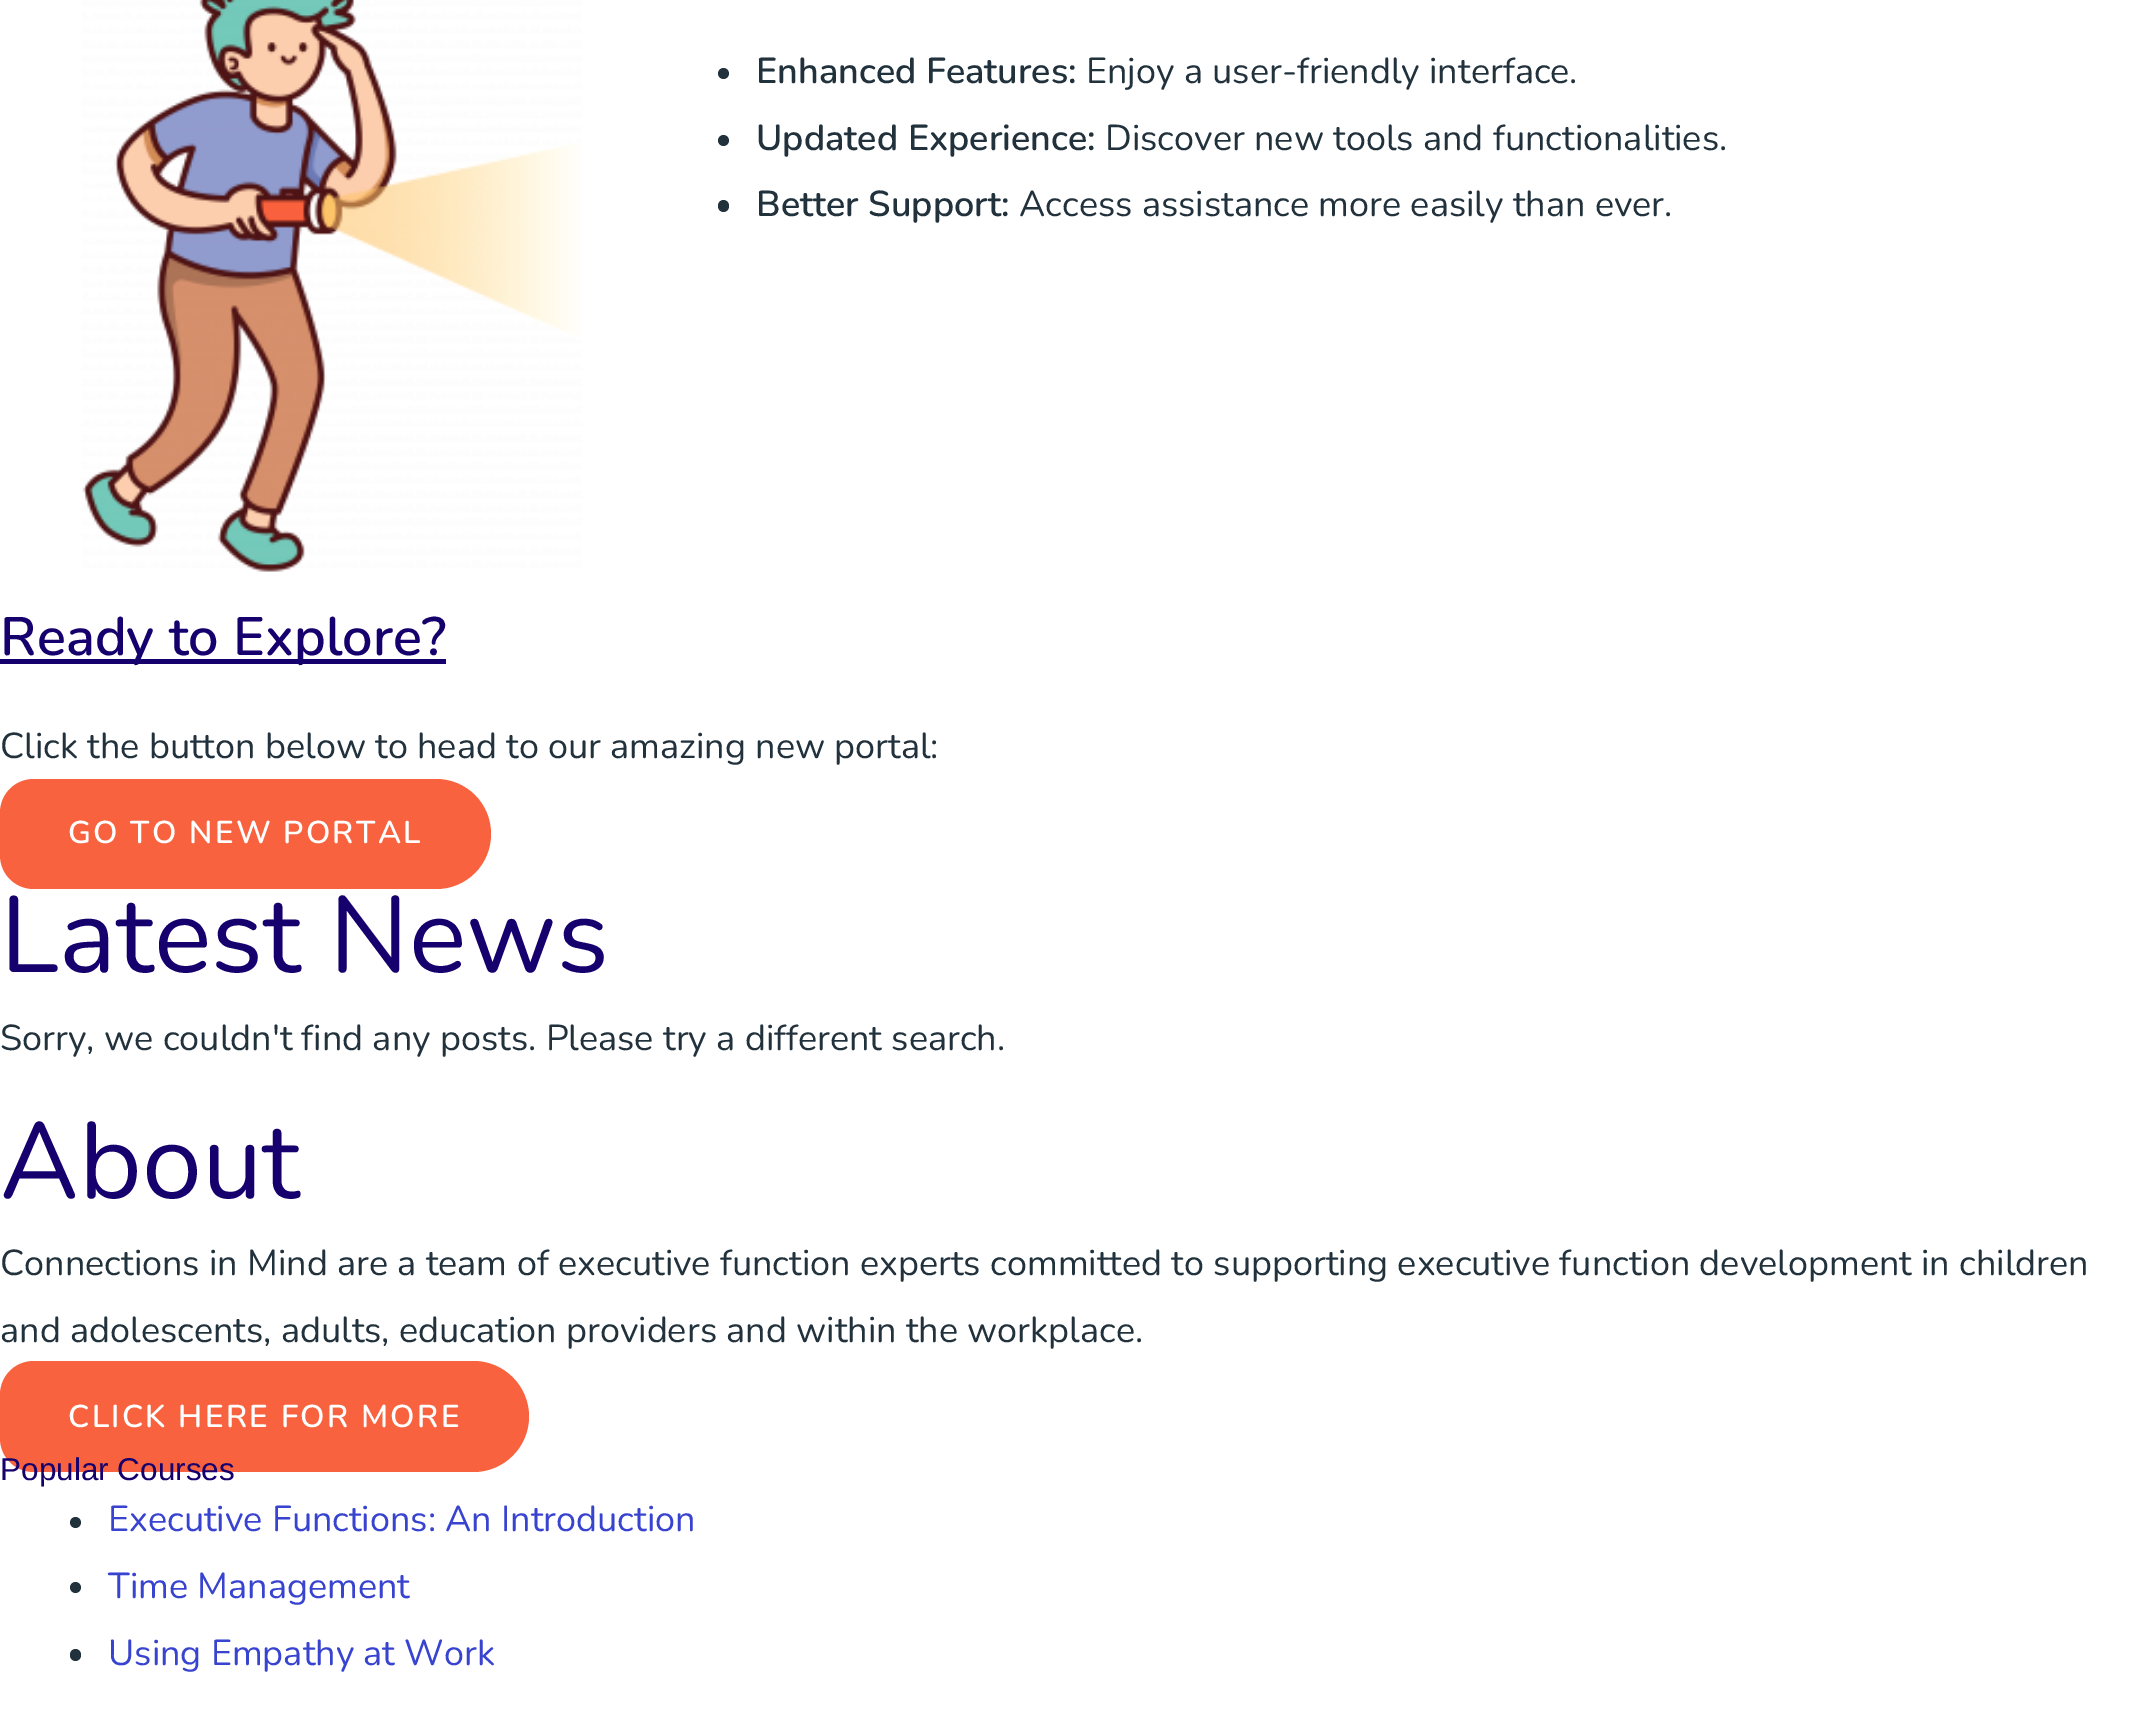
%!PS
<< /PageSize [2156 1729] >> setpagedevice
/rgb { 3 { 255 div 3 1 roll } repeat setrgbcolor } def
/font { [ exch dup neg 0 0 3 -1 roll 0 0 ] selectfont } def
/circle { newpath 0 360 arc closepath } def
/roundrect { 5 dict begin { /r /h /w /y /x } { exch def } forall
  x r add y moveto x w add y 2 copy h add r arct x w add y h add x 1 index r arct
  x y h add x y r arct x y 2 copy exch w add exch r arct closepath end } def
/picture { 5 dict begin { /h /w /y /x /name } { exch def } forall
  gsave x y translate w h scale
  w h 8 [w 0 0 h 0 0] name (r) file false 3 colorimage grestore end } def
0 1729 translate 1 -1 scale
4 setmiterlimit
255 255 255 rgb
0 0 2156 1729 rectfill
(img/1.rgb) 82 0 500 572 picture
34 50 61 rgb
723.5 73.5 5.5 circle fill
723.5 140.5 5.5 circle fill
718 200 11 12 5.5 roundrect fill
21 0 109 rgb
0 659 446 5 rectfill
249 98 62 rgb
34 779 moveto 68 779 lineto 68 889 lineto 34 889 lineto 15 889 0 874 0 855 curveto 0 813 lineto 0 794 15 779 34 779 curveto closepath fill
68 779 moveto 436 779 lineto 466.5 779 491 803.5 491 834 curveto 491 864.5 466.5 889 436 889 curveto 68 889 lineto closepath fill
34 1361 moveto 68 1361 lineto 68 1472 lineto 34 1472 lineto 15 1472 0 1457 0 1438 curveto 0 1395 lineto 0 1376 15 1361 34 1361 curveto closepath fill
68 1361 moveto 473.5 1361 lineto 504 1361 529 1386 529 1416.5 curveto 529 1447 504 1472 473.5 1472 curveto 68 1472 lineto closepath fill
34 50 61 rgb
75.5 1522.5 5.5 circle fill
75.5 1587.5 5.5 circle fill
70 1649 11 12 5.5 roundrect fill
/Nunito-SemiBold 36 font
756 83 moveto (Enhanced Features:) show
/Nunito-Regular 36 font
1086 83 moveto (Enjoy a user-friendly interface.) show
/Nunito-SemiBold 36 font
756 150 moveto (Updated Experience:) show
/Nunito-Regular 36 font
1105 150 moveto (Discover new tools and functionalities.) show
/Nunito-SemiBold 36 font
756 216 moveto (Better Support:) show
/Nunito-Regular 36 font
1019 216 moveto (Access assistance more easily than ever.) show
/Nunito-SemiBold 54 font
21 0 109 rgb
0 655 moveto (Ready to Explore?) show
/Nunito-Regular 36 font
34 50 61 rgb
0 758 moveto (Click the button below to head to our amazing new portal:) show
/Nunito-SemiBold 31.5 font
255 255 255 rgb
68 843 moveto 2.25 0 (GO TO NEW PORTAL) ashow
/Nunito-Regular 108 font
21 0 109 rgb
0 972 moveto (Latest News) show
/Nunito-Regular 36 font
34 50 61 rgb
0 1050 moveto (Sorry, we couldn't find any posts. Please try a different search.) show
/Nunito-Regular 108 font
21 0 109 rgb
0 1198 moveto (About) show
/Nunito-Regular 36 font
34 50 61 rgb
0 1275 moveto (Connections in Mind are a team of executive function experts committed to supporting executive function development in children) show
0 1342 moveto (and adolescents, adults, education providers and within the workplace.) show
/Nunito-SemiBold 31.5 font
255 255 255 rgb
68 1427 moveto 2.25 0 (CLICK HERE FOR MORE) ashow
/LiberationSans-Regular 31.5 font
21 0 109 rgb
0 1480 moveto (Popular Courses) show
/Nunito-Regular 36 font
56 67 208 rgb
[
  [(Executive Functions: An Introduction) 108 1531]
  [(Time Management) 108 1598]
  [(Using Empathy at Work) 108 1665]
] { aload pop moveto show } forall
showpage
